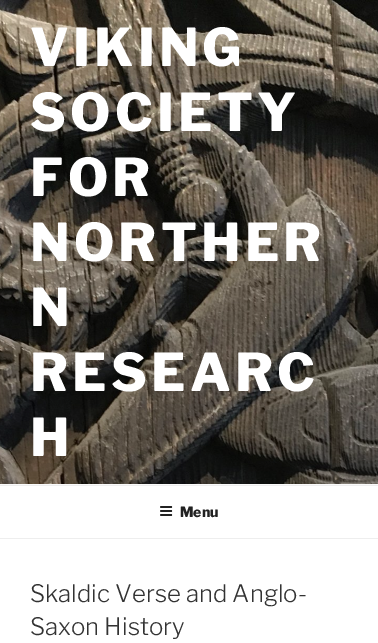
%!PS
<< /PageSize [378 643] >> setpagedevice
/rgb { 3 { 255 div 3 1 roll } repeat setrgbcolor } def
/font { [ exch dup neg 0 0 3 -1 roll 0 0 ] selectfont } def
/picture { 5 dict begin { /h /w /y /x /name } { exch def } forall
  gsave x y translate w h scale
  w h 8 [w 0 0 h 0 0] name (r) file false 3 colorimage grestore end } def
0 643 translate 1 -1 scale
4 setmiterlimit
255 255 255 rgb
0 0 378 643 rectfill
250 250 250 rgb
0 484 378 1 rectfill
(img/1.rgb) 0 0 378 484 picture
238 238 238 rgb
0 485 378 1 rectfill
0 538 378 1 rectfill
(img/2.rgb) 160 506 13 10 picture
/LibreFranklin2-Thin 52 font
255 255 255 rgb
30 66 moveto 4.25 0 (VIKING) ashow
30 131 moveto 4.25 0 (SOCIETY) ashow
30 196 moveto 4.25 0 (FOR) ashow
30 261 moveto 4.25 0 (NORTHER) ashow
30 326 moveto 4.25 0 (N) ashow
30 391 moveto 4.25 0 (RESEARC) ashow
30 456 moveto 4.25 0 (H) ashow
/LibreFranklin2-Thin 14 font
34 34 34 rgb
180 517 moveto (Menu) show
/LibreFranklin-Thin 24 font
51 51 51 rgb
30 602 moveto (Skaldic Verse and Anglo-) show
30 635 moveto (Saxon History) show
showpage
